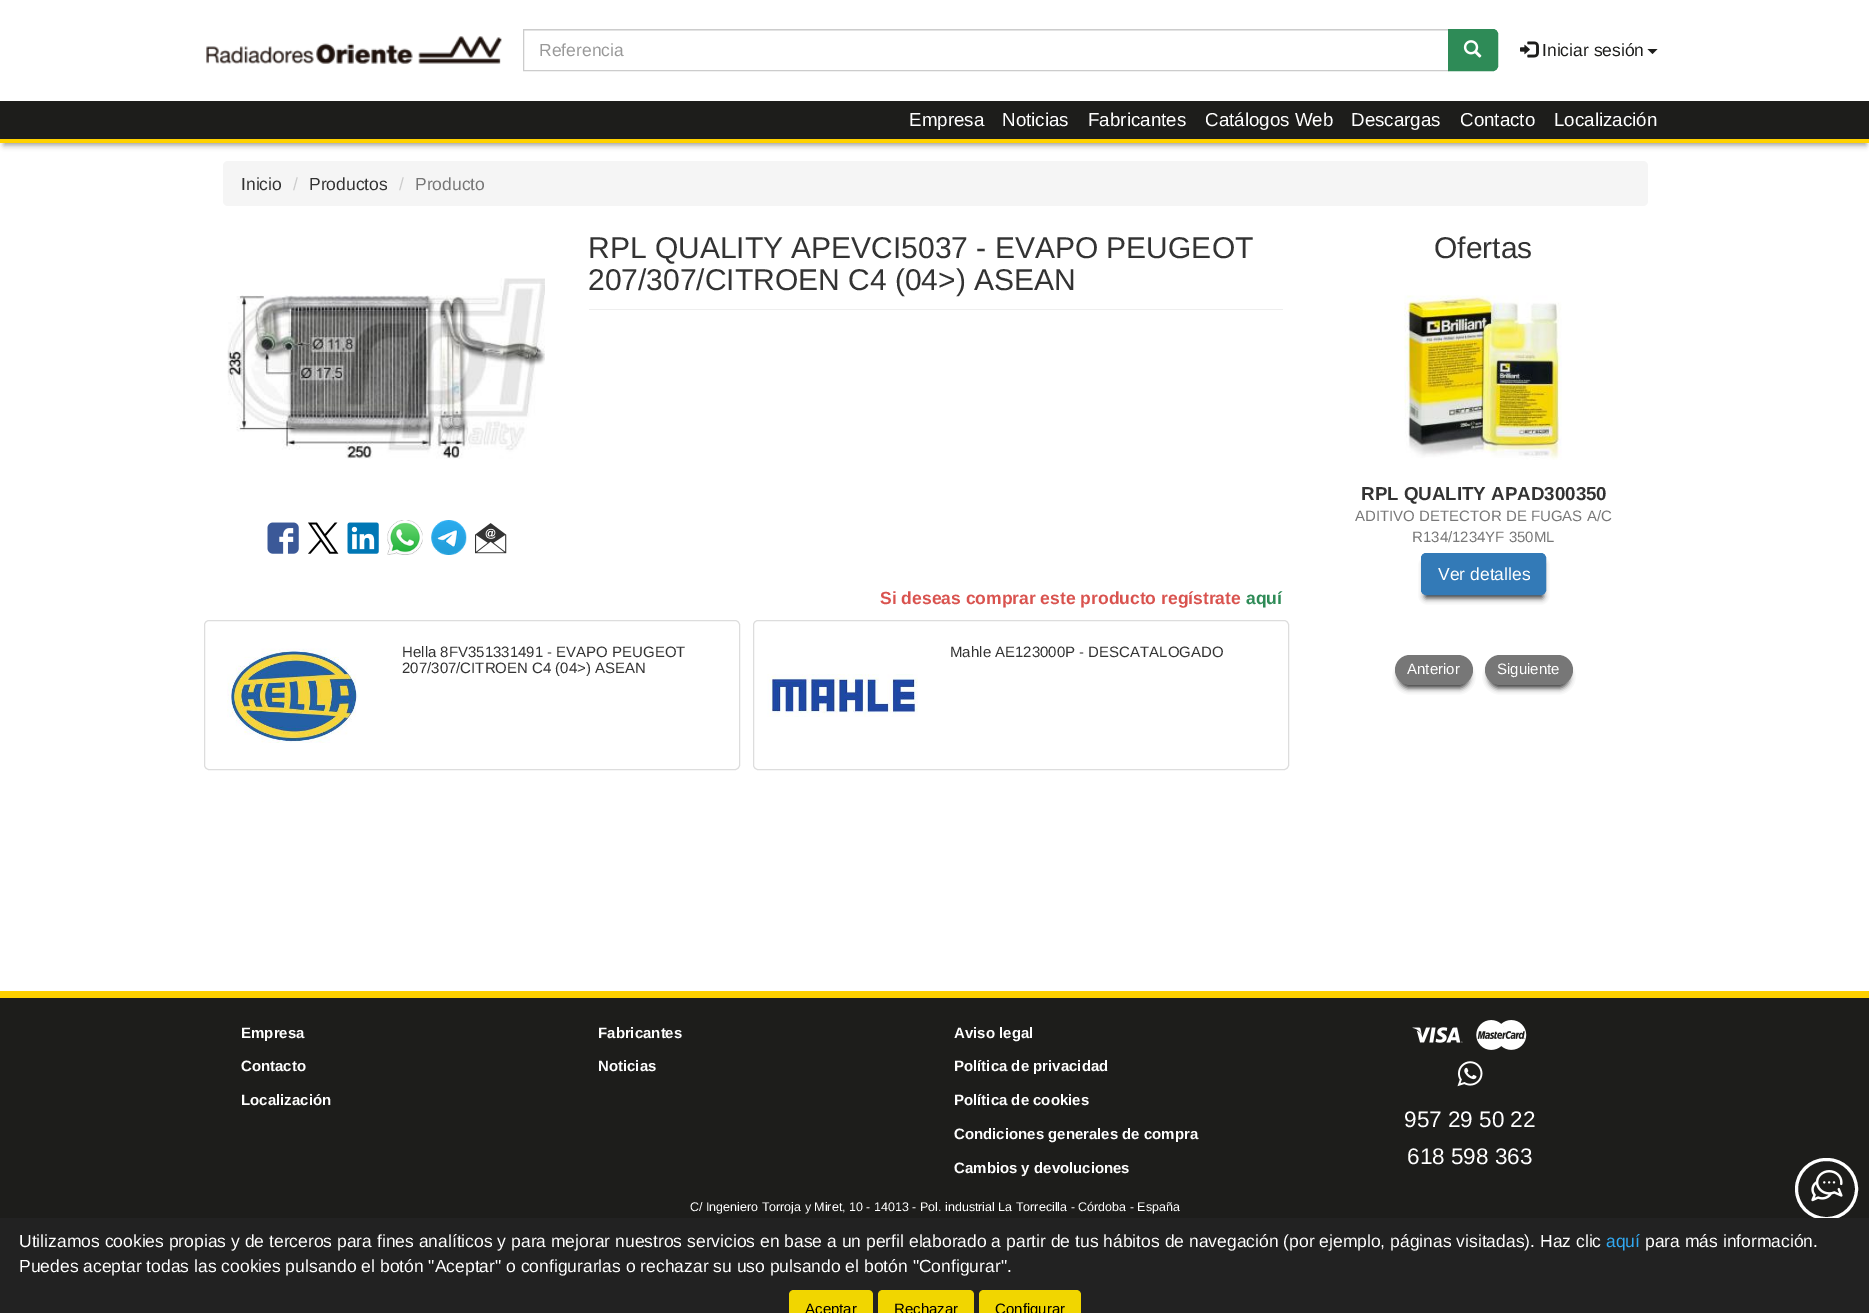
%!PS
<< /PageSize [1869 1313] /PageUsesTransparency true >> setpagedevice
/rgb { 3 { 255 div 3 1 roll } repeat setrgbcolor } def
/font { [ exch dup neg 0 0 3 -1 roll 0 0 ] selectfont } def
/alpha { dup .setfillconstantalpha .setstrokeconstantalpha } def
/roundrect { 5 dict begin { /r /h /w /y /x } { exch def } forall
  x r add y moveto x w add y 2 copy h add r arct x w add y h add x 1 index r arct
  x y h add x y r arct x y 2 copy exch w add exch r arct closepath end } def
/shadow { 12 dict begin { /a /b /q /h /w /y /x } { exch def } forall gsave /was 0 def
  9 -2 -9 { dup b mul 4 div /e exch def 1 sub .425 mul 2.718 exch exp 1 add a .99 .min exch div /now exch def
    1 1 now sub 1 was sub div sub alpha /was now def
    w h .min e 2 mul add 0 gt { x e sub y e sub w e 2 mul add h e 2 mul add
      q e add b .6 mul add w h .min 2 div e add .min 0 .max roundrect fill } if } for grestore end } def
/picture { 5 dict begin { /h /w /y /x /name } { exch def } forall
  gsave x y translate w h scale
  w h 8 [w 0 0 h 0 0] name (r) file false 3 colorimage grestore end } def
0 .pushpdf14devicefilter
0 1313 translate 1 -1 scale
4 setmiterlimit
255 255 255 rgb
0 0 1869 1313 rectfill
(img/1.rgb) 206 36 296 28 picture
236 236 236 rgb
524 30 924 1 rectfill
204 204 204 rgb
523.5 29.5 925 41 rectstroke
46 139 87 rgb
1448.5 29.5 moveto 1493 29.5 lineto 1495.5 29.5 1497.5 31.5 1497.5 34 curveto 1497.5 66 lineto 1497.5 68.5 1495.5 70.5 1493 70.5 curveto 1448.5 70.5 lineto closepath gsave fill grestore
stroke
(img/2.rgb) 1463 40 19 18 picture
(img/3.rgb) 1520 41 19 17 picture
29 29 27 rgb
1647.5 49 moveto 1657.5 49 lineto 1652.5 54 lineto closepath fill
0 0 0 rgb
4 111 1862 34 0 3 0.4 shadow
29 29 27 rgb
0 101 1869 38 rectfill
255 209 0 rgb
0 139 1869 4 rectfill
245 245 245 rgb
223 161 1425 45 5 roundrect fill
238 238 238 rgb
589 309 694 1 rectfill
(img/4.rgb) 227 278 318 181 picture
(img/5.rgb) 267 522 32 32 picture
(img/6.rgb) 308 522 31 32 picture
(img/7.rgb) 347 522 32 32 picture
(img/8.rgb) 387 520 36 35 picture
(img/9.rgb) 431 520 36 35 picture
(img/10.rgb) 475 523 32 31 picture
221 221 221 rgb
204.5 620.5 535 149 4.5 roundrect stroke
(img/11.rgb) 227 648 131 95 picture
753.5 620.5 535 149 4.5 roundrect stroke
(img/12.rgb) 767 674 151 43 picture
(img/13.rgb) 1404 295 158 165 picture
0 0 0 rgb
1425 563 118 35 1 3 0.8 shadow
51 122 183 rgb
1421.5 553.5 124 41 4.5 roundrect gsave fill grestore
stroke
0 0 0 rgb
1399 665 70 23 11.5 3 0.8 shadow
119 119 119 rgb
1395 655 78 30 15 roundrect fill
0 0 0 rgb
1489 665 80 23 11.5 3 0.8 shadow
119 119 119 rgb
1485 655 88 30 15 roundrect fill
29 29 27 rgb
0 998 1869 220 rectfill
255 209 0 rgb
0 991 1869 7 rectfill
(img/14.rgb) 1412 1027 51 16 picture
(img/15.rgb) 1476 1020 51 30 picture
(img/16.rgb) 1457 1061 26 26 picture
255 255 255 rgb
3 setlinewidth
1796.5 1159.5 60 59 29.5 roundrect stroke
(img/17.rgb) 1811 1170 32 32 picture
34 34 34 rgb
0 1218 1869 95 rectfill
241 214 0 rgb
794 1290 moveto 868 1290 lineto 871 1290 873 1292 873 1295 curveto 873 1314 lineto 789 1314 lineto 789 1295 lineto 789 1292 791 1290 794 1290 curveto closepath fill
883 1290 moveto 969 1290 lineto 972 1290 974 1292 974 1295 curveto 974 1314 lineto 878 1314 lineto 878 1295 lineto 878 1292 880 1290 883 1290 curveto closepath fill
984 1290 moveto 1076 1290 lineto 1079 1290 1081 1292 1081 1295 curveto 1081 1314 lineto 979 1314 lineto 979 1295 lineto 979 1292 981 1290 984 1290 curveto closepath fill
/LiberationSans-Regular 17.5 font
153 153 153 rgb
539 56 moveto (Referencia) show
29 29 27 rgb
1542 56 moveto (Iniciar sesión) show
/LiberationSans-Regular 18.75 font
255 255 255 rgb
[
  [(Empresa) 909 126]
  [(Noticias) 1002 126]
  [(Fabricantes) 1088 126]
  [(Catálogos Web) 1205 126]
  [(Descargas) 1351 126]
  [(Contacto) 1460 126]
  [(Localización) 1554 126]
] { aload pop moveto show } forall
/LiberationSans-Regular 17.5 font
51 51 51 rgb
241 190 moveto (Inicio) show
204 204 204 rgb
293 190 moveto (/) show
51 51 51 rgb
309 190 moveto (Productos) show
204 204 204 rgb
399 190 moveto (/) show
119 119 119 rgb
415 190 moveto (Producto) show
/LiberationSans-Regular 30 font
51 51 51 rgb
588 258 moveto (RPL QUALITY APEVCI5037 - EVAPO PEUGEOT) show
588 290 moveto (207/307/CITROEN C4 \(04>\) ASEAN) show
/LiberationSans-Bold 17.5 font
217 83 79 rgb
880 604 moveto (Si deseas comprar este producto regístrate) show
46 139 87 rgb
1246 604 moveto (aquí) show
/LiberationSans-Regular 15 font
51 51 51 rgb
[
  [(Hella 8FV351331491 - EVAPO PEUGEOT) 402 657]
  [(207/307/CITROEN C4 \(04>\) ASEAN) 402 673]
  [(Mahle AE123000P - DESCATALOGADO) 950 657]
] { aload pop moveto show } forall
/LiberationSans-Regular 30 font
1434 258 moveto (Ofertas) show
/LiberationSans-Bold 18.75 font
1361 500 moveto (RPL QUALITY APAD300350) show
/LiberationSans-Regular 15 font
119 119 119 rgb
1355 521 moveto (ADITIVO DETECTOR DE FUGAS A/C) show
1412 542 moveto (R134/1234YF 350ML) show
/LiberationSans-Regular 17.5 font
255 255 255 rgb
1438 580 moveto (Ver detalles) show
/LiberationSans-Regular 15 font
1407 674 moveto (Anterior) show
1497 674 moveto (Siguiente) show
/LiberationSans-Bold 15 font
[
  [(Empresa) 241 1038]
  [(Contacto) 241 1071]
  [(Localización) 241 1105]
  [(Fabricantes) 598 1038]
  [(Noticias) 598 1071]
  [(Aviso legal) 954 1038]
  [(Política de privacidad) 954 1071]
  [(Política de cookies) 954 1105]
  [(Condiciones generales de compra) 954 1139]
  [(Cambios y devoluciones) 954 1173]
] { aload pop moveto show } forall
/LiberationSans-Regular 22.5 font
1404 1127 moveto (957 29 50 22) show
1407 1164 moveto (618 598 363) show
/LiberationSans-Regular 12.5 font
690 1211 moveto (C/ Ingeniero Torroja y Miret, 10 - 14013 - Pol. industrial La Torrecilla - Córdoba - España) show
/LiberationSans-Regular 17.5 font
19 1247 moveto (Utilizamos cookies propias y de terceros para fines analíticos y para mejorar nuestros servicios en base a un perfil elaborado a partir de tus hábitos de navegación \(por ejemplo, páginas visitadas\). Haz clic) show
49 168 240 rgb
1606 1247 moveto (aquí) show
255 255 255 rgb
1645 1247 moveto (para más información.) show
19 1272 moveto (Puedes aceptar todas las cookies pulsando el botón "Aceptar" o configurarlas o rechazar su uso pulsando el botón "Configurar".) show
/LiberationSans-Regular 15 font
0 0 0 rgb
[
  [(Aceptar) 805 1314]
  [(Rechazar) 894 1314]
  [(Configurar) 995 1314]
] { aload pop moveto show } forall
.poppdf14devicefilter showpage
